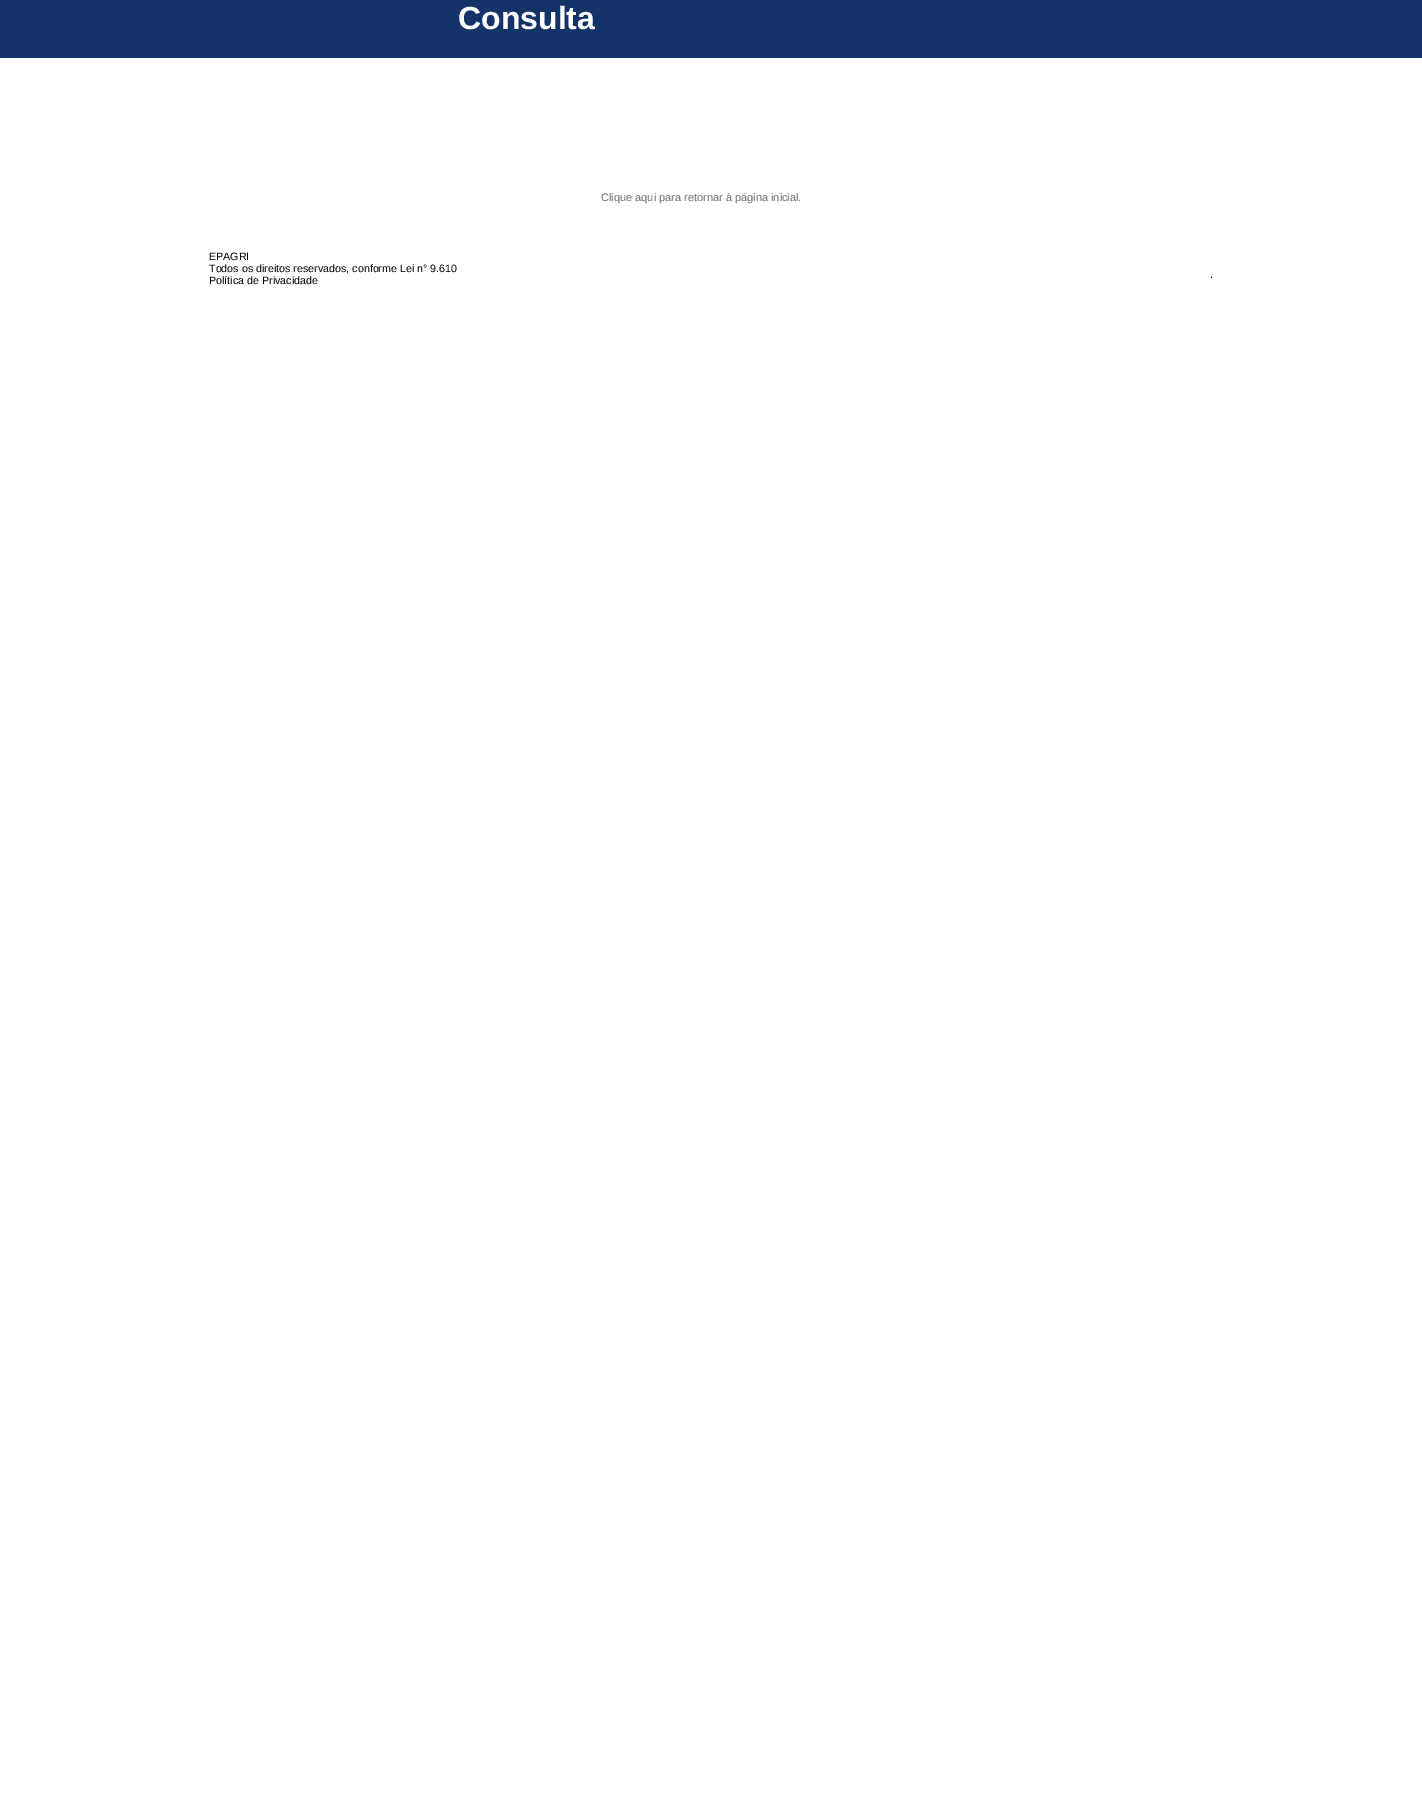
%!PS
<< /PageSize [1422 1810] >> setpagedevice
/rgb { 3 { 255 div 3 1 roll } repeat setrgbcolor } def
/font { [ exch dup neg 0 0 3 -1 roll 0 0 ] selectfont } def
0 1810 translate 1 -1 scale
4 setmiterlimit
255 255 255 rgb
0 0 1422 1810 rectfill
20 51 105 rgb
0 0 1422 58 rectfill
/LiberationSans-Bold 32 font
255 255 255 rgb
458 29 moveto (Consulta) show
/LiberationSans-Regular 11 font
108 108 108 rgb
601 201 moveto (Clique aqui para retornar à página inicial.) show
/LiberationSans-Regular 10.7 font
0 0 0 rgb
[
  [(EPAGRI) 209 260]
  [(Todos os direitos reservados, conforme Lei n° 9.610) 209 272]
  [(Política de Privacidade) 209 284]
  [(.) 1210 278]
] { aload pop moveto show } forall
showpage
